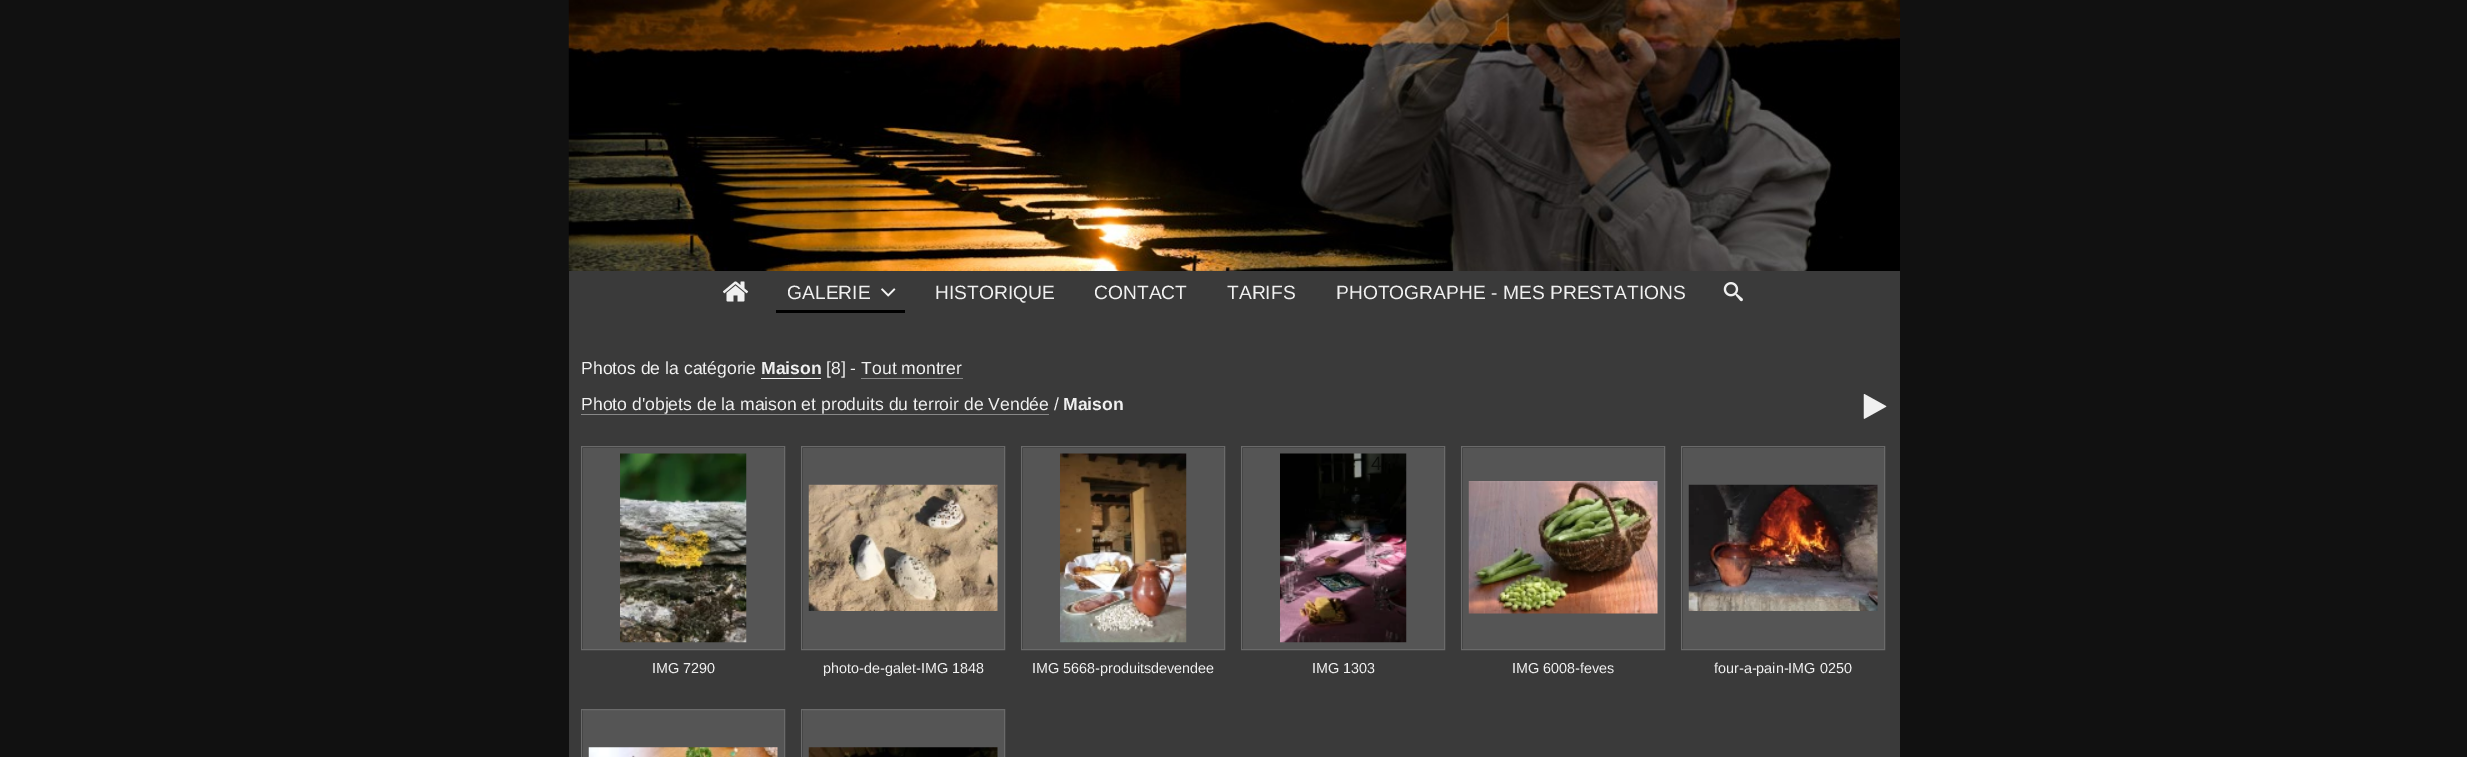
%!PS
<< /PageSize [2467 757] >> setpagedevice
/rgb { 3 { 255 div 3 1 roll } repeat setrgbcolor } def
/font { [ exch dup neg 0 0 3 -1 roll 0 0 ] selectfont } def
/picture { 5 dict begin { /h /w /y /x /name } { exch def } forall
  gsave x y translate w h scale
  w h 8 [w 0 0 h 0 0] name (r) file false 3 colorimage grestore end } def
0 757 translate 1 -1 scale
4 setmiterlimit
17 17 17 rgb
0 0 2467 757 rectfill
58 58 58 rgb
569 271 1331 486 rectfill
(img/1.rgb) 568 0 1332 271 picture
(img/2.rgb) 723 281 26 21 picture
0 0 0 rgb
776 310 129 3 rectfill
(img/3.rgb) 881 288 15 9 picture
(img/4.rgb) 1723 282 20 20 picture
[
  [761 378 60 1 240 240 240]
  [861 378 102 1 136 136 136]
  [581 414 468 1 136 136 136]
] { aload pop rgb rectfill } forall
(img/5.rgb) 1863 394 24 25 picture
85 85 85 rgb
583 448 201 201 rectfill
106 106 106 rgb
581.5 446.5 203 203 rectstroke
(img/6.rgb) 620 453 127 190 picture
85 85 85 rgb
803 448 201 201 rectfill
106 106 106 rgb
801.5 446.5 203 203 rectstroke
(img/7.rgb) 808 484 190 127 picture
85 85 85 rgb
1023 448 201 201 rectfill
106 106 106 rgb
1021.5 446.5 203 203 rectstroke
(img/8.rgb) 1060 453 127 190 picture
85 85 85 rgb
1243 448 201 201 rectfill
106 106 106 rgb
1241.5 446.5 203 203 rectstroke
(img/9.rgb) 1280 453 127 190 picture
85 85 85 rgb
1463 448 201 201 rectfill
106 106 106 rgb
1461.5 446.5 203 203 rectstroke
(img/10.rgb) 1468 481 190 133 picture
85 85 85 rgb
1683 448 201 201 rectfill
106 106 106 rgb
1681.5 446.5 203 203 rectstroke
(img/11.rgb) 1688 484 190 127 picture
85 85 85 rgb
583 710 201 47 rectfill
106 106 106 rgb
581.5 709.5 203 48 rectstroke
(img/12.rgb) 588 747 190 10 picture
85 85 85 rgb
803 710 201 47 rectfill
106 106 106 rgb
801.5 709.5 203 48 rectstroke
(img/13.rgb) 808 747 190 10 picture
/LiberationSans-Regular 19.25 font
240 240 240 rgb
[
  [(GALERIE) 787 299]
  [(HISTORIQUE) 935 299]
  [(CONTACT) 1094 299]
  [(TARIFS) 1227 299]
  [(PHOTOGRAPHE - MES PRESTATIONS) 1336 299]
] { aload pop moveto show } forall
/LiberationSans-Regular 17.6 font
581 374 moveto (Photos de la catégorie) show
/LiberationSans-Bold 17.6 font
761 374 moveto (Maison) show
/LiberationSans-Regular 17.6 font
826 374 moveto ([8] - Tout montrer) show
581 410 moveto (Photo d'objets de la maison et produits du terroir de Vendée /) show
/LiberationSans-Bold 17.6 font
1063 410 moveto (Maison) show
/LiberationSans-Regular 14.4 font
[
  [(IMG 7290) 652 673]
  [(photo-de-galet-IMG 1848) 823 673]
  [(IMG 5668-produitsdevendee) 1032 673]
] { aload pop moveto show } forall
/LiberationSans-Regular 19.25 font
13 15 11 rgb
1371 470 moveto (4) show
/LiberationSans-Regular 14.4 font
240 240 240 rgb
[
  [(IMG 1303) 1312 673]
  [(IMG 6008-feves) 1512 673]
  [(four-a-pain-IMG 0250) 1714 673]
] { aload pop moveto show } forall
showpage
